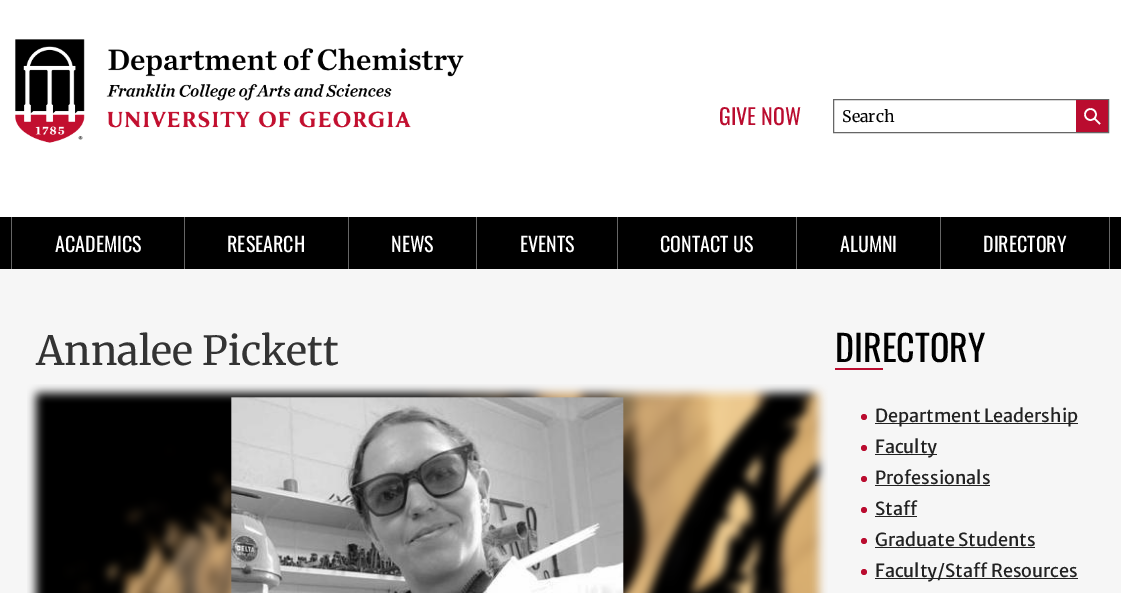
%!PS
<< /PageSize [1121 593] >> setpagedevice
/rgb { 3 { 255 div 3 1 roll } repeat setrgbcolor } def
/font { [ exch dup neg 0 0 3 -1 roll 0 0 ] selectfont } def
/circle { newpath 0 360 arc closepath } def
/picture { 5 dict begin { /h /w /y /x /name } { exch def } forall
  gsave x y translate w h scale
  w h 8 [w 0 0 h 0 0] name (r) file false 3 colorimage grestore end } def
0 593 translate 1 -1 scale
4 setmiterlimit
255 255 255 rgb
0 0 1121 593 rectfill
(img/1.rgb) 15 39 449 104 picture
102 102 102 rgb
833.5 99.5 275 33 rectstroke
186 12 47 rgb
1076 100 32 32 rectfill
255 255 255 rgb
1.6 setlinewidth
1090.5 114.5 5.5 circle stroke
1094.5 118.5 moveto 1100 124 lineto stroke
[
  [0 217 1121 52 0 0 0]
  [11 217 1 52 102 102 102]
  [1109 217 1 52 102 102 102]
  [184 217 1 52 102 102 102]
  [348 217 1 52 102 102 102]
  [476 217 1 52 102 102 102]
  [617 217 1 52 102 102 102]
  [796 217 1 52 102 102 102]
  [940 217 1 52 102 102 102]
  [0 269 1121 324 246 246 246]
] { aload pop rgb rectfill } forall
(img/2.rgb) 27 384 801 209 picture
(img/3.rgb) 231 397 393 196 picture
186 12 47 rgb
835 368 48 2 rectfill
864 417 3 circle fill
34 34 34 rgb
875 423 203 1 rectfill
186 12 47 rgb
864 448 3 circle fill
34 34 34 rgb
875 454 62 1 rectfill
186 12 47 rgb
864 479 3 circle fill
34 34 34 rgb
875 485 115 1 rectfill
186 12 47 rgb
864 510 3 circle fill
34 34 34 rgb
875 516 42 1 rectfill
186 12 47 rgb
864 541 3 circle fill
34 34 34 rgb
875 547 160 1 rectfill
186 12 47 rgb
864 572 3 circle fill
34 34 34 rgb
875 578 203 1 rectfill
/Oswald-Regular 22 font
186 12 47 rgb
719 125 moveto (GIVE NOW) show
/Merriweather-Light 16 font
0 0 0 rgb
842 122 moveto (Search) show
/Oswald-Regular 20 font
255 255 255 rgb
[
  [(ACADEMICS) 55 252]
  [(RESEARCH) 227 252]
  [(NEWS) 391 252]
  [(EVENTS) 520 252]
  [(CONTACT US) 660 252]
  [(ALUMNI) 840 252]
  [(DIRECTORY) 983 252]
] { aload pop moveto show } forall
/Merriweather-Light 40 font
51 51 51 rgb
36 365 moveto (Annalee Pickett) show
/Oswald-Regular 36 font
0 0 0 rgb
835 362 moveto (DIRECTORY) show
/MerriweatherSans-Regular 18 font
34 34 34 rgb
[
  [(Department Leadership) 875 422]
  [(Faculty) 875 453]
  [(Professionals) 875 484]
  [(Staff) 875 515]
  [(Graduate Students) 875 546]
  [(Faculty/Staff Resources) 875 577]
] { aload pop moveto show } forall
showpage
